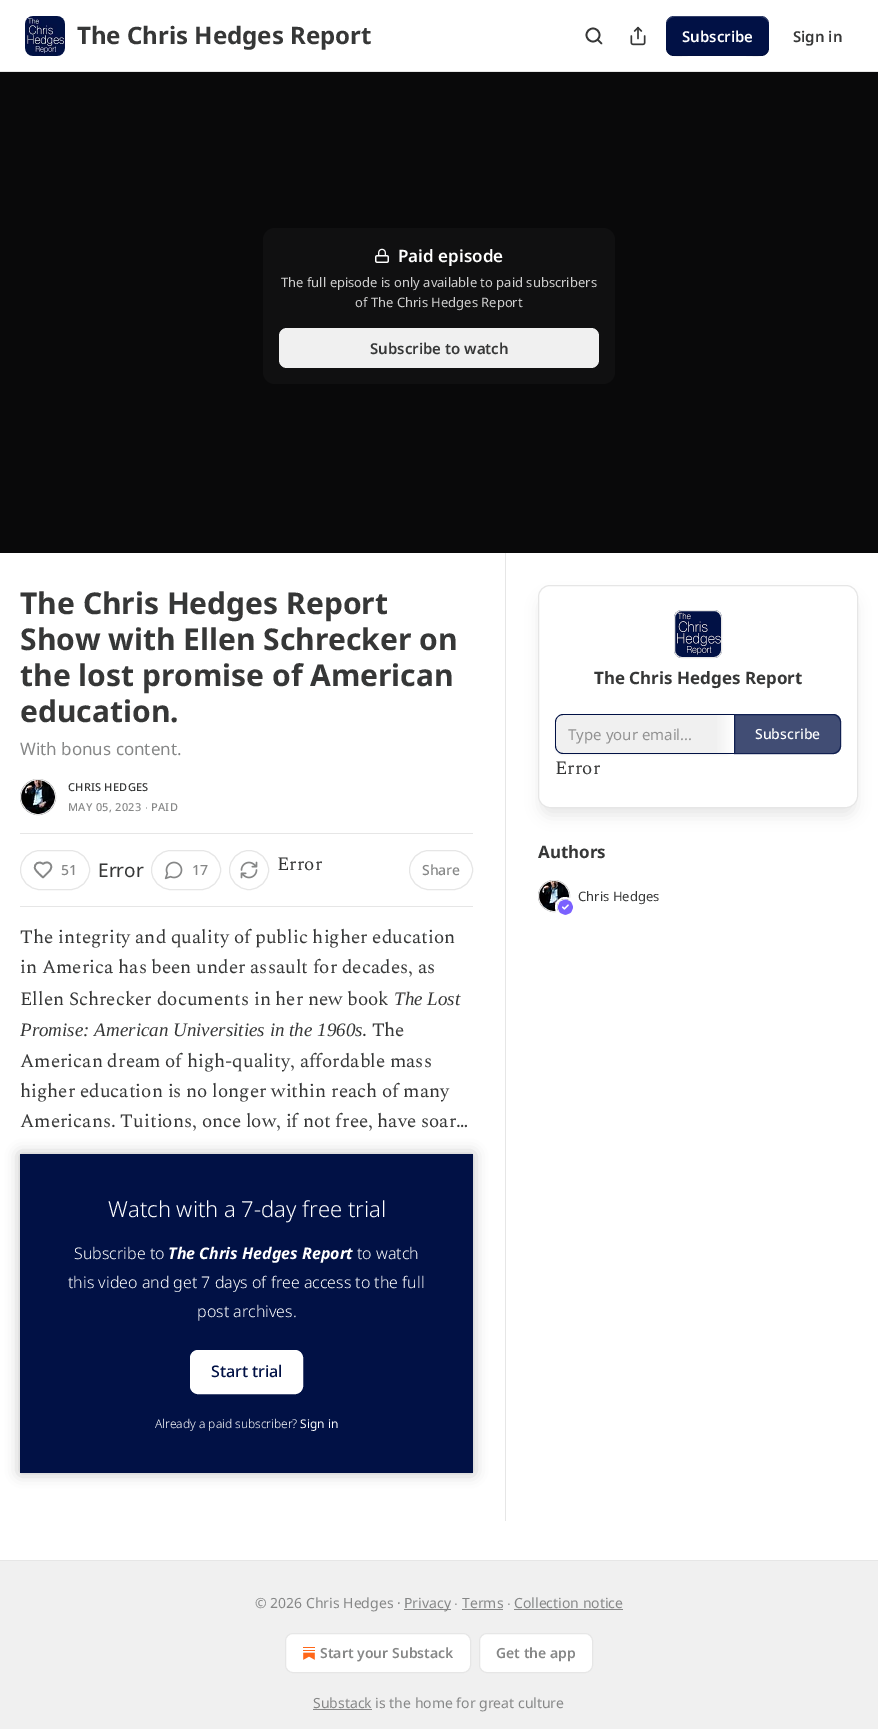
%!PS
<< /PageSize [878 1729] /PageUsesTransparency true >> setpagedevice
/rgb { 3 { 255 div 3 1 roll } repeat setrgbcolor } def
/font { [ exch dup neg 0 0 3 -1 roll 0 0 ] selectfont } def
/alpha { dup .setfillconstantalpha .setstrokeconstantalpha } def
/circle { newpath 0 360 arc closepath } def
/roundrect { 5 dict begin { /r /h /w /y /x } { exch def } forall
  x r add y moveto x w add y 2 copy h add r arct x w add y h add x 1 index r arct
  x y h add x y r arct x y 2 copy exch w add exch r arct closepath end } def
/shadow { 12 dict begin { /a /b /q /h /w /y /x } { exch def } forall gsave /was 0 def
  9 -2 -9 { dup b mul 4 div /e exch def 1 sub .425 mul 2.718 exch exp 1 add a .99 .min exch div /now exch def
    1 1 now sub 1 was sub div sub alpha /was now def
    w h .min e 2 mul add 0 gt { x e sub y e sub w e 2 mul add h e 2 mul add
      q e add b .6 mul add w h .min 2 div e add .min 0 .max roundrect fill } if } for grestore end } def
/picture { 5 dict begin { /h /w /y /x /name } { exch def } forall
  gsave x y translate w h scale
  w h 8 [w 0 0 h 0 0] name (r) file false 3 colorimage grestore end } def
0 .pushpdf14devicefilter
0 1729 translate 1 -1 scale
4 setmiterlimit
255 255 255 rgb
0 0 878 1729 rectfill
230 230 230 rgb
0 71 878 1 rectfill
(img/1.rgb) 25 16 40 40 picture
54 55 55 rgb
1.7 setlinewidth
593 35 6.5 circle stroke
1 setlinecap
1 setlinejoin
601.5 43.5 moveto 598 40 lineto stroke
(img/2.rgb) 630 26 16 20 picture
1 17 69 rgb
666 16 103 40 8 roundrect fill
0.1 alpha
0 0 0 rgb
666 47 moveto 666 59 680 56 688 56 curveto 746 56 lineto 755 56 769 59 769 47 curveto 769 51 765 55 761 55 curveto 674 55 lineto 670 55 666 51 666 47 curveto closepath fill
0.2 alpha
255 255 255 rgb
674 17 moveto 761 17 lineto 765 17 769 21 769 25 curveto 769 13 755 16 746 16 curveto 688 16 lineto 680 16 666 13 666 25 curveto 666 21 670 17 674 17 curveto closepath fill
1 alpha
9 9 10 rgb
0 72 878 481 rectfill
16 16 17 rgb
263 228 352 156 12 roundrect fill
(img/3.rgb) 375 248 14 15 picture
240 240 240 rgb
279 328 320 40 8 roundrect fill
230 230 230 rgb
1 setlinewidth
0 setlinecap
0 setlinejoin
38 797 17.5 circle stroke
(img/4.rgb) 20 779 36 36 picture
38 797 17.5 circle stroke
20 833 453 1 rectfill
20 906 453 1 rectfill
20.5 850.5 69 39 19.5 roundrect stroke
134 135 135 rgb
1.7 setlinewidth
1 setlinecap
1 setlinejoin
49 871.5 moveto 55 865.5 48 859.5 43 864 curveto 39.5 860.5 33.5 863.5 35 868.5 curveto 36 871.5 41 875.5 43 877.5 curveto closepath stroke
230 230 230 rgb
1 setlinewidth
0 setlinecap
0 setlinejoin
151.5 850.5 69 39 19.5 roundrect stroke
(img/5.rgb) 164 861 19 19 picture
249 870 19.5 circle stroke
(img/6.rgb) 240 861 18 18 picture
409.5 850.5 63 39 19.5 roundrect stroke
1 17 69 rgb
20 1154 453 319 rectfill
255 255 255 rgb
190.5 1350.5 112 43 7.5 roundrect gsave fill grestore
stroke
gsave
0 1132 moveto 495 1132 lineto 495 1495 lineto 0 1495 lineto closepath 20 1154 moveto 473 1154 lineto 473 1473 lineto 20 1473 lineto closepath eoclip newpath
0 0 0 rgb
20 1154 453 319 0 7 0.25 shadow
grestore
230 230 230 rgb
505 553 1 968 rectfill
gsave
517 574 moveto 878 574 lineto 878 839 lineto 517 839 lineto closepath 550 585 moveto 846 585 lineto 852.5 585 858 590.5 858 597 curveto 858 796 lineto 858 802.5 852.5 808 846 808 curveto 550 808 lineto 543.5 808 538 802.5 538 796 curveto 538 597 lineto 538 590.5 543.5 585 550 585 curveto closepath eoclip newpath
0 0 0 rgb
541 598 314 217 9 7.5 0.1 shadow
grestore
538.5 585.5 319 222 11.5 roundrect stroke
(img/7.rgb) 674 610 48 48 picture
674.5 610.5 47 47 7.5 roundrect stroke
0 0 0 rgb
555 715 179 40 8 1 0.05 shadow
240 240 240 rgb
563 715 moveto 734 715 lineto 734 753 lineto 563 753 lineto 559 753 556 750 556 746 curveto 556 722 lineto 556 718 559 715 563 715 curveto closepath fill
1 17 69 rgb
563 714 moveto 734 714 lineto 734 754 lineto 563 754 lineto 559 754 555 750 555 746 curveto 555 722 lineto 555 718 559 714 563 714 curveto closepath 563 715 moveto 734 715 lineto 734 753 lineto 563 753 lineto 559 753 556 750 556 746 curveto 556 722 lineto 556 718 559 715 563 715 curveto closepath eofill
gsave 717 715 moveto 734 715 lineto 734 753 lineto 717 753 lineto closepath clip newpath
<< /ShadingType 2 /ColorSpace /DeviceRGB /Coords [714 734 734 734] /Extend [true true] /Function << /FunctionType 2 /Domain [0 1] /C0 [0.941 0.941 0.941] /C1 [1 1 1] /N 1 >> >> shfill grestore
0.75 alpha
734 714 moveto 833 714 lineto 837.5 714 841 717.5 841 722 curveto 841 746 lineto 841 750.5 837.5 754 833 754 curveto 734 754 lineto closepath fill
734.5 714.5 moveto 833 714.5 lineto 837 714.5 840.5 718 840.5 722 curveto 840.5 746 lineto 840.5 750 837 753.5 833 753.5 curveto 734.5 753.5 lineto closepath stroke
1 alpha
230 230 230 rgb
554 896 15.5 circle stroke
(img/8.rgb) 538 880 32 32 picture
554 896 15.5 circle stroke
255 255 255 rgb
565 907 9 circle gsave fill grestore
2 setlinewidth
stroke
(img/9.rgb) 557 899 16 16 picture
[
  [0 1561 878 168 240 240 240]
  [0 1560 878 1 230 230 230]
  [404 1609 47 1 134 135 135]
  [462 1609 41 1 134 135 135]
  [514 1609 109 1 134 135 135]
] { aload pop rgb rectfill } forall
255 255 255 rgb
285.5 1633.5 185 39 7.5 roundrect gsave fill grestore
230 230 230 rgb
1 setlinewidth
stroke
(img/10.rgb) 303 1647 12 13 picture
255 255 255 rgb
479.5 1633.5 113 39 7.5 roundrect gsave fill grestore
230 230 230 rgb
stroke
134 135 135 rgb
313 1709 59 1 rectfill
/NotoSans-Bold 24 font
54 55 55 rgb
77 44 moveto (The Chris Hedges Report) show
/NotoSans-SemiBold 15 font
255 255 255 rgb
682 42 moveto (Subscribe) show
54 55 55 rgb
793 42 moveto (Sign in) show
/NotoSans-SemiBold 17 font
255 255 255 rgb
398 262 moveto (Paid episode) show
/NotoSans-Regular 13 font
207 207 207 rgb
281 287 moveto (The full episode is only available to paid subscribers) show
355 307 moveto (of The Chris Hedges Report) show
/NotoSans-SemiBold 15 font
54 55 55 rgb
370 354 moveto (Subscribe to watch) show
/NotoSans-Bold 30 font
[
  [(The Chris Hedges Report) 20 614]
  [(Show with Ellen Schrecker on) 20 650]
  [(the lost promise of American) 20 686]
  [(education.) 20 722]
] { aload pop moveto show } forall
/NotoSans-Regular 17 font
134 135 135 rgb
20 755 moveto (With bonus content.) show
/NotoSans-Medium 11 font
54 55 55 rgb
68 791 moveto 0.25 0 (CHRIS HEDGES) ashow
134 135 135 rgb
68 811 moveto 0.25 0 (MAY 05, 2023) ashow
/LiberationSans-Regular 11 font
145 811 moveto 0.25 0 (∙) ashow
/NotoSans-Medium 11 font
151 811 moveto 0.25 0 (PAID) ashow
/NotoSans-Medium 14 font
61 875 moveto (51) show
/NotoSans-Regular 19 font
54 55 55 rgb
98 877 moveto (Error) show
/NotoSans-Medium 14 font
134 135 135 rgb
192 875 moveto (17) show
/Spectral-Regular 19 font
54 55 55 rgb
277 870 moveto (Error) show
/NotoSans-Medium 14 font
134 135 135 rgb
422 875 moveto (Share) show
/Spectral-Regular 19 font
54 55 55 rgb
[
  [(The integrity and quality of public higher education) 20 943]
  [(in America has been under assault for decades, as) 20 973]
  [(Ellen Schrecker documents in her new book) 20 1005]
] { aload pop moveto show } forall
/LiberationSerif-Italic 19 font
394 1005 moveto (The Lost) show
20 1036 moveto (Promise: American Universities in the 1960s) show
/Spectral-Regular 19 font
[
  [(. The) 362 1036]
  [(American dream of high-quality, affordable mass) 20 1067]
  [(higher education is no longer within reach of many) 20 1097]
  [(Americans. Tuitions, once low, if not free, have soar…) 20 1127]
] { aload pop moveto show } forall
/NotoSans-Light 22 font
255 255 255 rgb
108 1217 moveto (Watch with a 7-day free trial) show
/NotoSans-Light 16 font
74 1259 moveto (Subscribe to) show
/NotoSans-BoldItalic 16 font
168 1259 moveto (The Chris Hedges Report) show
/NotoSans-Light 16 font
[
  [(to watch) 357 1259]
  [(this video and get 7 days of free access to the full) 68 1288]
  [(post archives.) 197 1317]
] { aload pop moveto show } forall
/NotoSans-Medium 16 font
1 17 69 rgb
211 1377 moveto (Start trial) show
/NotoSans-Light 12 font
255 255 255 rgb
155 1428 moveto (Already a paid subscriber?) show
/NotoSans-Regular 12 font
300 1428 moveto (Sign in) show
/NotoSans-Bold 17 font
54 55 55 rgb
594 684 moveto (The Chris Hedges Report) show
/NotoSans-Regular 15 font
146 146 146 rgb
568 740 moveto (Type your email...) show
/NotoSans-Medium 14 font
255 255 255 rgb
755 739 moveto (Subscribe) show
/Spectral-Regular 19 font
54 55 55 rgb
555 774 moveto (Error) show
/NotoSans-Bold 17 font
538 858 moveto (Authors) show
/NotoSans-Regular 13 font
578 901 moveto (Chris Hedges) show
/NotoSans-Regular 14 font
134 135 135 rgb
255 1608 moveto (© 2026 Chris Hedges ·) show
404 1608 moveto (Privacy) show
/LiberationSans-Regular 14 font
454 1608 moveto (∙) show
/NotoSans-Regular 14 font
462 1608 moveto (Terms) show
/LiberationSans-Regular 14 font
507 1608 moveto (∙) show
/NotoSans-Regular 14 font
514 1608 moveto (Collection notice) show
/NotoSans-SemiBold 14 font
320 1658 moveto (Start your Substack) show
496 1658 moveto (Get the app) show
/NotoSans-Regular 14 font
313 1708 moveto (Substack is the home for great culture) show
.poppdf14devicefilter showpage
